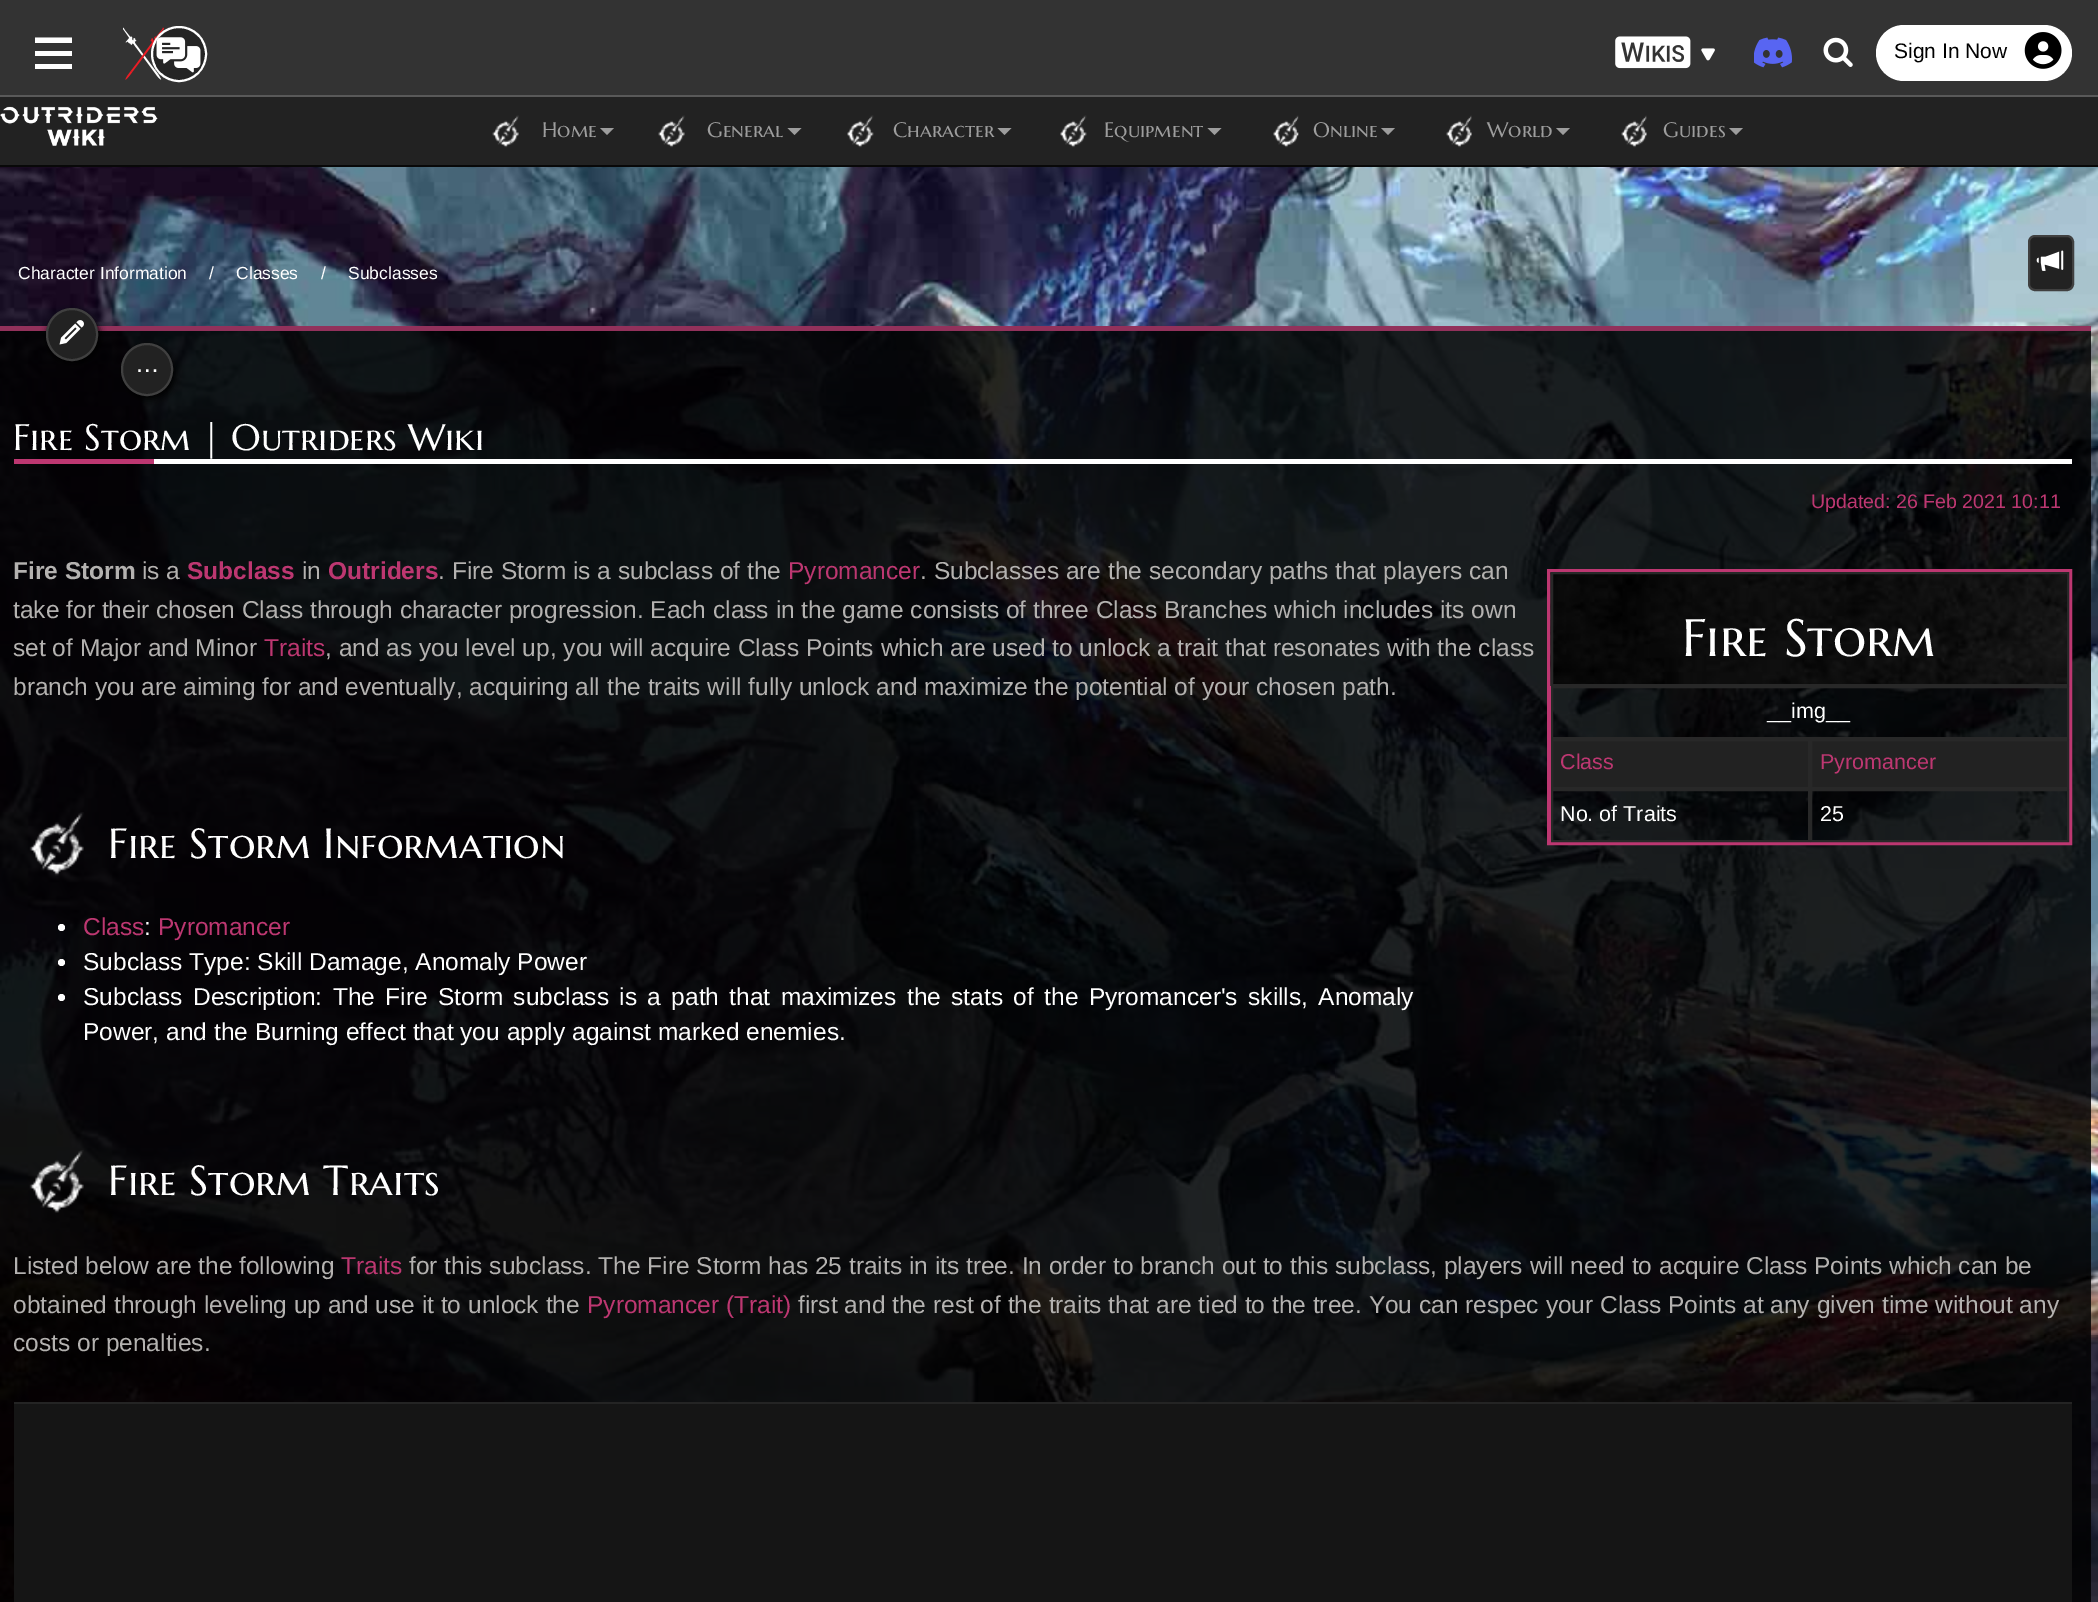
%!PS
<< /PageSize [2098 1602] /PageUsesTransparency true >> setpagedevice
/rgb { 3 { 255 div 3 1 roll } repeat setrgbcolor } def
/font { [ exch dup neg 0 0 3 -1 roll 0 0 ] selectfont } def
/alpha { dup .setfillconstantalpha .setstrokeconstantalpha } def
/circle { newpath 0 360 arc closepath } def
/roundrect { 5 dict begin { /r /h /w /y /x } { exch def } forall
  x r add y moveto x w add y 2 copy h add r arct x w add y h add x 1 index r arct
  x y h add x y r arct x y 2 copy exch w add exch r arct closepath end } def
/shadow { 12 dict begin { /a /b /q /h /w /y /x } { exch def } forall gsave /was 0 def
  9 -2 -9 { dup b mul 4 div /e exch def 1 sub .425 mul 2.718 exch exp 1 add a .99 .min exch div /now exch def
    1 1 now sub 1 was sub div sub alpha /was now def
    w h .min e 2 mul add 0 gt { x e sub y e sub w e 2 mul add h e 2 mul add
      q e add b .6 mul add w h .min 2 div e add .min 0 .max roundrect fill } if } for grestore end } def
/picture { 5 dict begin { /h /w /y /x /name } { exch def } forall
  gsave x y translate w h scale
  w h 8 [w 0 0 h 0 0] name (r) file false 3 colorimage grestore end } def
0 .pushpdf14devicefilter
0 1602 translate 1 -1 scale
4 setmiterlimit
255 255 255 rgb
0 0 2098 1602 rectfill
51 51 51 rgb
0 0 2098 95 rectfill
89 89 89 rgb
0 95 2098 2 rectfill
255 255 255 rgb
35 37.5 moveto 72 37.5 lineto 72 43 lineto 35 43 lineto closepath 35 51 moveto 72 51 lineto 72 56 lineto 35 56 lineto closepath 72 64 moveto 72 69 lineto 35 69 lineto 35 64 lineto closepath fill
(img/1.rgb) 123 27 41 53 picture
36 36 36 rgb
179 54 27 circle gsave fill grestore
255 255 255 rgb
2 setlinewidth
stroke
(img/2.rgb) 156 37 45 36 picture
(img/3.rgb) 1615 36 100 33 picture
(img/4.rgb) 1754 37 38 31 picture
(img/5.rgb) 1823 37 30 30 picture
1876 25 196 56 28 roundrect fill
(img/6.rgb) 2024 32 38 37 picture
34 34 34 rgb
0 97 2098 68 rectfill
8 8 8 rgb
0 165 2098 2 rectfill
(img/7.rgb) 0 106 158 40 picture
(img/8.rgb) 492 115 27 33 picture
157 157 157 rgb
600 128 moveto 614 128 lineto 607 135 lineto closepath fill
(img/9.rgb) 658 115 27 33 picture
787.5 128 moveto 801.5 128 lineto 794.5 135 lineto closepath fill
(img/10.rgb) 847 115 27 33 picture
997.5 128 moveto 1011.5 128 lineto 1004.5 135 lineto closepath fill
(img/11.rgb) 1060 115 27 33 picture
1207.5 128 moveto 1221.5 128 lineto 1214.5 135 lineto closepath fill
(img/12.rgb) 1273 115 26 33 picture
1381 128 moveto 1395 128 lineto 1388 135 lineto closepath fill
(img/13.rgb) 1446 115 26 33 picture
1556 128 moveto 1570 128 lineto 1563 135 lineto closepath fill
(img/14.rgb) 1621 115 26 33 picture
1729 128 moveto 1743 128 lineto 1736 135 lineto closepath fill
(img/15.rgb) 0 167 2098 1435 picture
34 34 34 rgb
2029 236 44 54 6 roundrect gsave fill grestore
64 64 64 rgb
stroke
(img/16.rgb) 2036 250 28 21 picture
0.85 alpha
0 0 0 rgb
0 331 2091 1271 rectfill
1 alpha
146 49 91 rgb
0 326 2091 5 rectfill
0 0 0 rgb
47 312 53 52 26 3.5 1 shadow
34 34 34 rgb
47 309 50 51 25 roundrect gsave fill grestore
64 64 64 rgb
stroke
(img/17.rgb) 59 320 25 25 picture
0 0 0 rgb
123 347 52 52 26 3.5 1 shadow
34 34 34 rgb
122 344 50 51 25 roundrect gsave fill grestore
64 64 64 rgb
stroke
255 255 255 rgb
154 459 1918 5 rectfill
189 55 113 rgb
14 459 140 5 rectfill
4 setlinewidth
1549 571 521 272 rectstroke
(img/18.rgb) 1550 572 517 114 picture
40 40 40 rgb
2 setlinewidth
1552 573 516 112 rectstroke
1552 687 516 51 rectstroke
34 34 34 rgb
1553 741 514 46 rectfill
40 40 40 rgb
1552 740 257 48 rectstroke
1811 740 257 48 rectstroke
1552 790 257 51 rectstroke
1811 790 257 51 rectstroke
(img/19.rgb) 29 812 55 64 picture
255 255 255 rgb
61.5 927.5 3.5 circle fill
61.5 962.5 3.5 circle fill
61.5 997.5 3.5 circle fill
(img/20.rgb) 29 1150 55 63 picture
36 36 36 rgb
14 1402 2058 2 rectfill
21 21 21 rgb
14 1404 2058 198 rectfill
/LiberationSans-Regular 21 font
0 0 0 rgb
1894 58 moveto (Sign In Now) show
/MarcellusSC-Regular 21 font
157 157 157 rgb
[
  [(Home) 542 137]
  [(General) 707 137]
  [(Character) 893 137]
  [(Equipment) 1104 137]
  [(Online) 1313 137]
  [(World) 1487 137]
  [(Guides) 1663 137]
] { aload pop moveto show } forall
/LiberationSans-Regular 17.5 font
255 255 255 rgb
[
  [(Character Information) 18 279]
  [(/) 209 279]
  [(Classes) 236 279]
  [(/) 321 279]
  [(Subclasses) 348 279]
] { aload pop moveto show } forall
/LiberationSans-Regular 24.5 font
135 372 moveto (…) show
/MarcellusSC-Regular 36.75 font
13 450 moveto (Fire Storm | Outriders Wiki) show
/LiberationSans-Regular 19.6 font
189 55 113 rgb
1811 508 moveto (Updated: 26 Feb 2021 10:11) show
/LiberationSans-Bold 24.5 font
180 178 176 rgb
13 579 moveto (Fire Storm) show
/LiberationSans-Regular 24.5 font
142 579 moveto (is a) show
/LiberationSans-Bold 24.5 font
189 55 113 rgb
187 579 moveto (Subclass) show
/LiberationSans-Regular 24.5 font
180 178 176 rgb
302 579 moveto (in) show
/LiberationSans-Bold 24.5 font
189 55 113 rgb
328 579 moveto (Outriders) show
/LiberationSans-Regular 24.5 font
180 178 176 rgb
438 579 moveto (. Fire Storm is a subclass of the) show
189 55 113 rgb
788 579 moveto (Pyromancer) show
180 178 176 rgb
[
  [(. Subclasses are the secondary paths that players can) 920 579]
  [(take for their chosen Class through character progression. Each class in the game consists of three Class Branches which includes its own) 13 618]
  [(set of Major and Minor) 13 656]
] { aload pop moveto show } forall
189 55 113 rgb
264 656 moveto (Traits) show
180 178 176 rgb
325 656 moveto (, and as you level up, you will acquire Class Points which are used to unlock a trait that resonates with the class) show
13 695 moveto (branch you are aiming for and eventually, acquiring all the traits will fully unlock and maximize the potential of your chosen path.) show
/MarcellusSC-Regular 52.5 font
255 255 255 rgb
1682 656 moveto (Fire Storm) show
/LiberationSans-Regular 21.5 font
1767 718 moveto (__img__) show
189 55 113 rgb
1560 769 moveto (Class) show
1820 769 moveto (Pyromancer) show
255 255 255 rgb
1560 821 moveto (No. of Traits) show
1820 821 moveto (25) show
/MarcellusSC-Regular 42 font
108 858 moveto (Fire Storm Information) show
/LiberationSans-Regular 24.5 font
189 55 113 rgb
83 935 moveto (Class) show
255 255 255 rgb
144 935 moveto (:) show
189 55 113 rgb
158 935 moveto (Pyromancer) show
255 255 255 rgb
83 970 moveto (Subclass Type: Skill Damage, Anomaly Power) show
83 1005 moveto 3.6 0 32 (Subclass Description: The Fire Storm subclass is a path that maximizes the stats of the Pyromancer's skills, Anomaly) widthshow
83 1040 moveto (Power, and the Burning effect that you apply against marked enemies.) show
/MarcellusSC-Regular 42 font
108 1195 moveto (Fire Storm Traits) show
/LiberationSans-Regular 24.5 font
180 178 176 rgb
13 1274 moveto (Listed below are the following) show
189 55 113 rgb
341 1274 moveto (Traits) show
180 178 176 rgb
409 1274 moveto (for this subclass. The Fire Storm has 25 traits in its tree. In order to branch out to this subclass, players will need to acquire Class Points which can be) show
13 1313 moveto (obtained through leveling up and use it to unlock the) show
189 55 113 rgb
587 1313 moveto (Pyromancer \(Trait\)) show
180 178 176 rgb
798 1313 moveto (first and the rest of the traits that are tied to the tree. You can respec your Class Points at any given time without any) show
13 1351 moveto (costs or penalties.) show
.poppdf14devicefilter showpage
